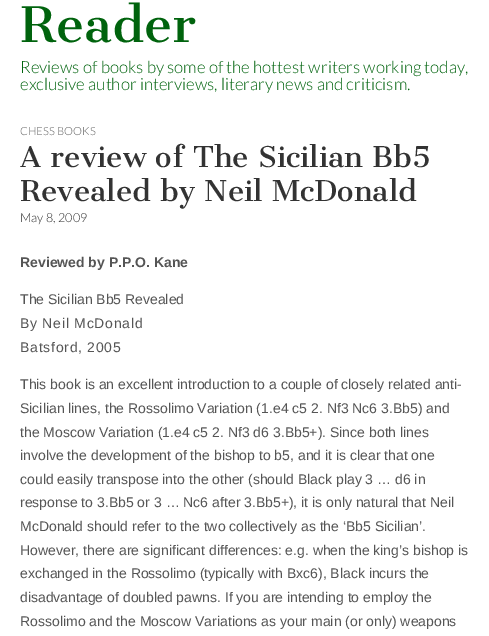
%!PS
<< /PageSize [489 636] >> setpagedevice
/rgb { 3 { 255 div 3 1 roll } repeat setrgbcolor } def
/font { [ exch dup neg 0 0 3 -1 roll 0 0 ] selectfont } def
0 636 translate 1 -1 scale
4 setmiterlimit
255 255 255 rgb
0 0 489 636 rectfill
/CantataOne-Regular 48 font
0 99 13 rgb
20 42 moveto (Reader) show
/Lato-Light 16.8 font
20 73 moveto (Reviews of books by some of the hottest writers working today,) show
20 90 moveto (exclusive author interviews, literary news and criticism.) show
/Lato-Light 11.25 font
102 102 102 rgb
20 135 moveto (CHESS BOOKS) show
/CantataOne-Regular 28 font
51 51 51 rgb
20 167 moveto (A review of The Sicilian Bb5) show
20 201 moveto (Revealed by Neil McDonald) show
/Lato-Light 12.5 font
20 222 moveto (May 8, 2009) show
/LiberationSans-Bold 14 font
85 85 85 rgb
20 267 moveto (Reviewed by P.P.O. Kane) show
/LiberationSans-Regular 14 font
20 304 moveto (The Sicilian Bb5 Revealed) show
20 328 moveto 0.75 0 (By Neil McDonald) ashow
20 352 moveto 0.75 0 (Batsford, 2005) ashow
[
  [(This book is an excellent introduction to a couple of closely related anti-) 20 389]
  [(Sicilian lines, the Rossolimo Variation \(1.e4 c5 2. Nf3 Nc6 3.Bb5\) and) 20 413]
  [(the Moscow Variation \(1.e4 c5 2. Nf3 d6 3.Bb5+\). Since both lines) 20 437]
  [(involve the development of the bishop to b5, and it is clear that one) 20 460]
  [(could easily transpose into the other \(should Black play 3 … d6 in) 20 484]
  [(response to 3.Bb5 or 3 … Nc6 after 3.Bb5+\), it is only natural that Neil) 20 507]
  [(McDonald should refer to the two collectively as the ‘Bb5 Sicilian’.) 20 531]
  [(However, there are significant differences: e.g. when the king’s bishop is) 20 555]
  [(exchanged in the Rossolimo \(typically with Bxc6\), Black incurs the) 20 578]
  [(disadvantage of doubled pawns. If you are intending to employ the) 20 602]
  [(Rossolimo and the Moscow Variations as your main \(or only\) weapons) 20 626]
] { aload pop moveto show } forall
showpage
